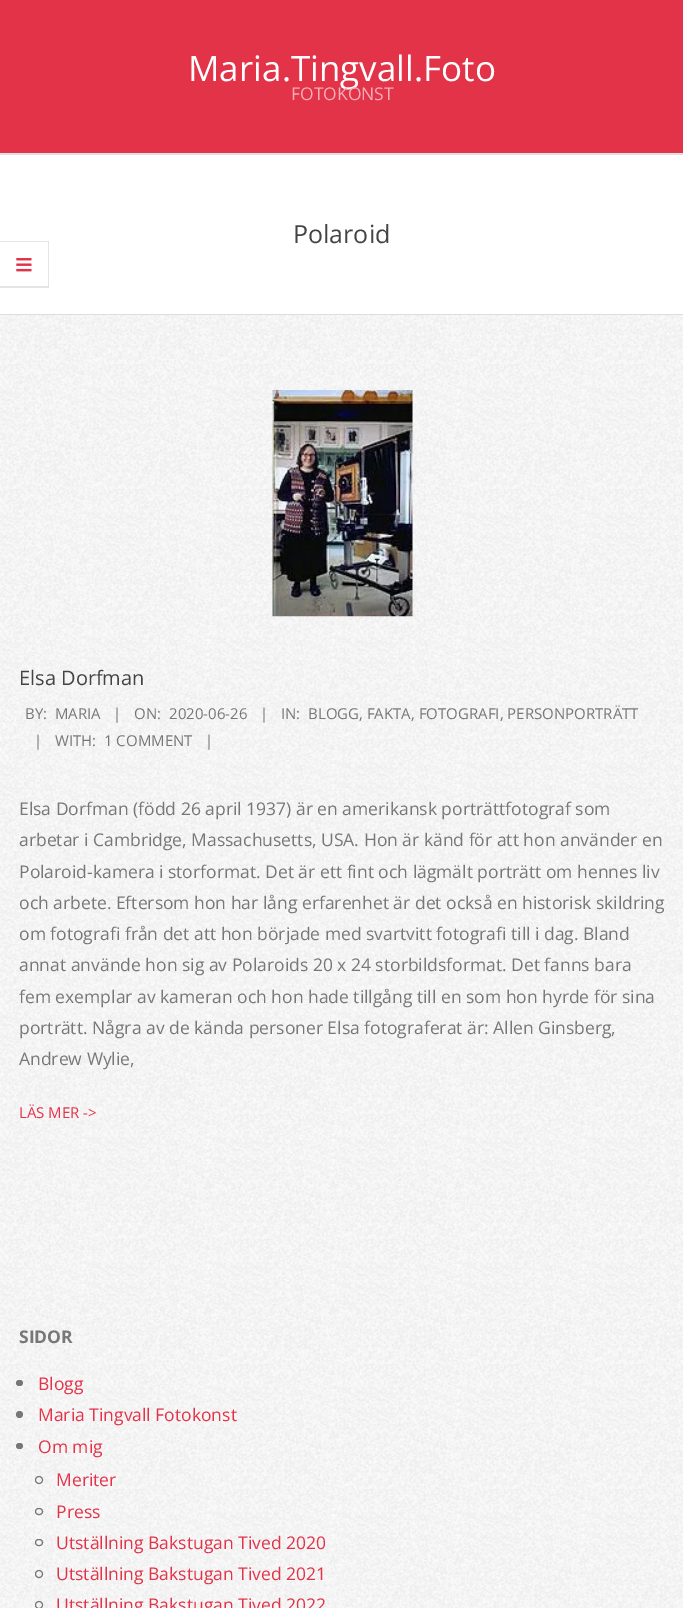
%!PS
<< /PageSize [683 1608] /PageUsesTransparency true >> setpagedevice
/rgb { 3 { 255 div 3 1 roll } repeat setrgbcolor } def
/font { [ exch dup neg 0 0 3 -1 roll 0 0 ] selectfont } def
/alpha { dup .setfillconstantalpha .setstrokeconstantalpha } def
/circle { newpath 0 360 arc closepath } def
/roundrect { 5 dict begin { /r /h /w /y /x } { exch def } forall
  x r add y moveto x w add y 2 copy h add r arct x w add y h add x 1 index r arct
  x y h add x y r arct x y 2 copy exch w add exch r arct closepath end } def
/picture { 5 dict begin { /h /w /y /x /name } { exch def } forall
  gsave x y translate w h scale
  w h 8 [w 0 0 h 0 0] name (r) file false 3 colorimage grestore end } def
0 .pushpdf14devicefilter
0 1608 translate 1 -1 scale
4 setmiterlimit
255 255 255 rgb
0 0 683 1608 rectfill
[
  [0 0 683 153 226 51 72]
  [0 153 683 1 230 230 230]
  [0 154 683 1 221 221 221]
] { aload pop rgb rectfill } forall
230 230 230 rgb
0 241 moveto 49 241 lineto 48 242 lineto 0 242 lineto closepath fill
0.1 alpha
0 0 0 rgb
49 241 moveto 49 288 lineto 48 286 lineto 48 242 lineto closepath fill
49 288 moveto 0 288 lineto 0 286 lineto 48 286 lineto closepath fill
1 alpha
(img/1.rgb) 16 258 16 14 picture
(img/2.rgb) 0 315 683 1293 picture
221 221 221 rgb
0 314 683 1 rectfill
(img/3.rgb) 272 390 141 227 picture
119 119 119 rgb
16 1380 7 6 3 roundrect fill
19.5 1414.5 3.5 circle fill
16 1443 7 6 3 roundrect fill
39 1480 3.5 circle stroke
35.5 1508.5 7 6 3 roundrect stroke
35.5 1539.5 7 6 3 roundrect stroke
39 1574 3.5 circle stroke
39 1605 3.5 circle stroke
/OpenSans-Regular 35 font
255 255 255 rgb
188 81 moveto (Maria.Tingvall.Foto) show
/OpenSans-Regular 17.5 font
244 175 184 rgb
291 100 moveto (FOTOKONST) show
/OpenSans-Regular 25 font
68 68 68 rgb
293 243 moveto (Polaroid) show
/OpenSans-Regular 20 font
19 685 moveto (Elsa Dorfman) show
/OpenSans-Regular 15 font
119 119 119 rgb
[
  [(BY:) 25 719]
  [(MARIA) 55 719]
  [(|) 113 719]
  [(ON:) 134 719]
  [(2020-06-26) 169 719]
  [(|) 260 719]
  [(IN:) 281 719]
  [(BLOGG, FAKTA, FOTOGRAFI, PERSONPORTRÄTT) 308 719]
  [(|) 34 746]
  [(WITH:) 55 746]
  [(1 COMMENT) 104 746]
  [(|) 205 746]
] { aload pop moveto show } forall
/OpenSans-Regular 17.5 font
[
  [(Elsa Dorfman \(född 26 april 1937\) är en amerikansk porträttfotograf som) 19 815]
  [(arbetar i Cambridge, Massachusetts, USA. Hon är känd för att hon använder en) 19 846]
  [(Polaroid-kamera i storformat. Det är ett fint och lägmält porträtt om hennes liv) 19 878]
  [(och arbete. Eftersom hon har lång erfarenhet är det också en historisk skildring) 19 909]
  [(om fotografi från det att hon började med svartvitt fotografi till i dag. Bland) 19 940]
  [(annat använde hon sig av Polaroids 20 x 24 storbildsformat. Det fanns bara) 19 971]
  [(fem exemplar av kameran och hon hade tillgång till en som hon hyrde för sina) 19 1003]
  [(porträtt. Några av de kända personer Elsa fotograferat är: Allen Ginsberg,) 19 1034]
  [(Andrew Wylie,) 19 1065]
] { aload pop moveto show } forall
/OpenSans-Regular 15 font
226 51 72 rgb
19 1118 moveto (LÄS MER ->) show
/OpenSans-Bold 17.5 font
119 119 119 rgb
19 1343 moveto (SIDOR) show
/OpenSans-Regular 17.5 font
226 51 72 rgb
[
  [(Blogg) 38 1390]
  [(Maria Tingvall Fotokonst) 38 1421]
  [(Om mig) 38 1453]
  [(Meriter) 56 1486]
  [(Press) 56 1518]
  [(Utställning Bakstugan Tived 2020) 56 1549]
  [(Utställning Bakstugan Tived 2021) 56 1580]
  [(Utställning Bakstugan Tived 2022) 56 1611]
] { aload pop moveto show } forall
.poppdf14devicefilter showpage
